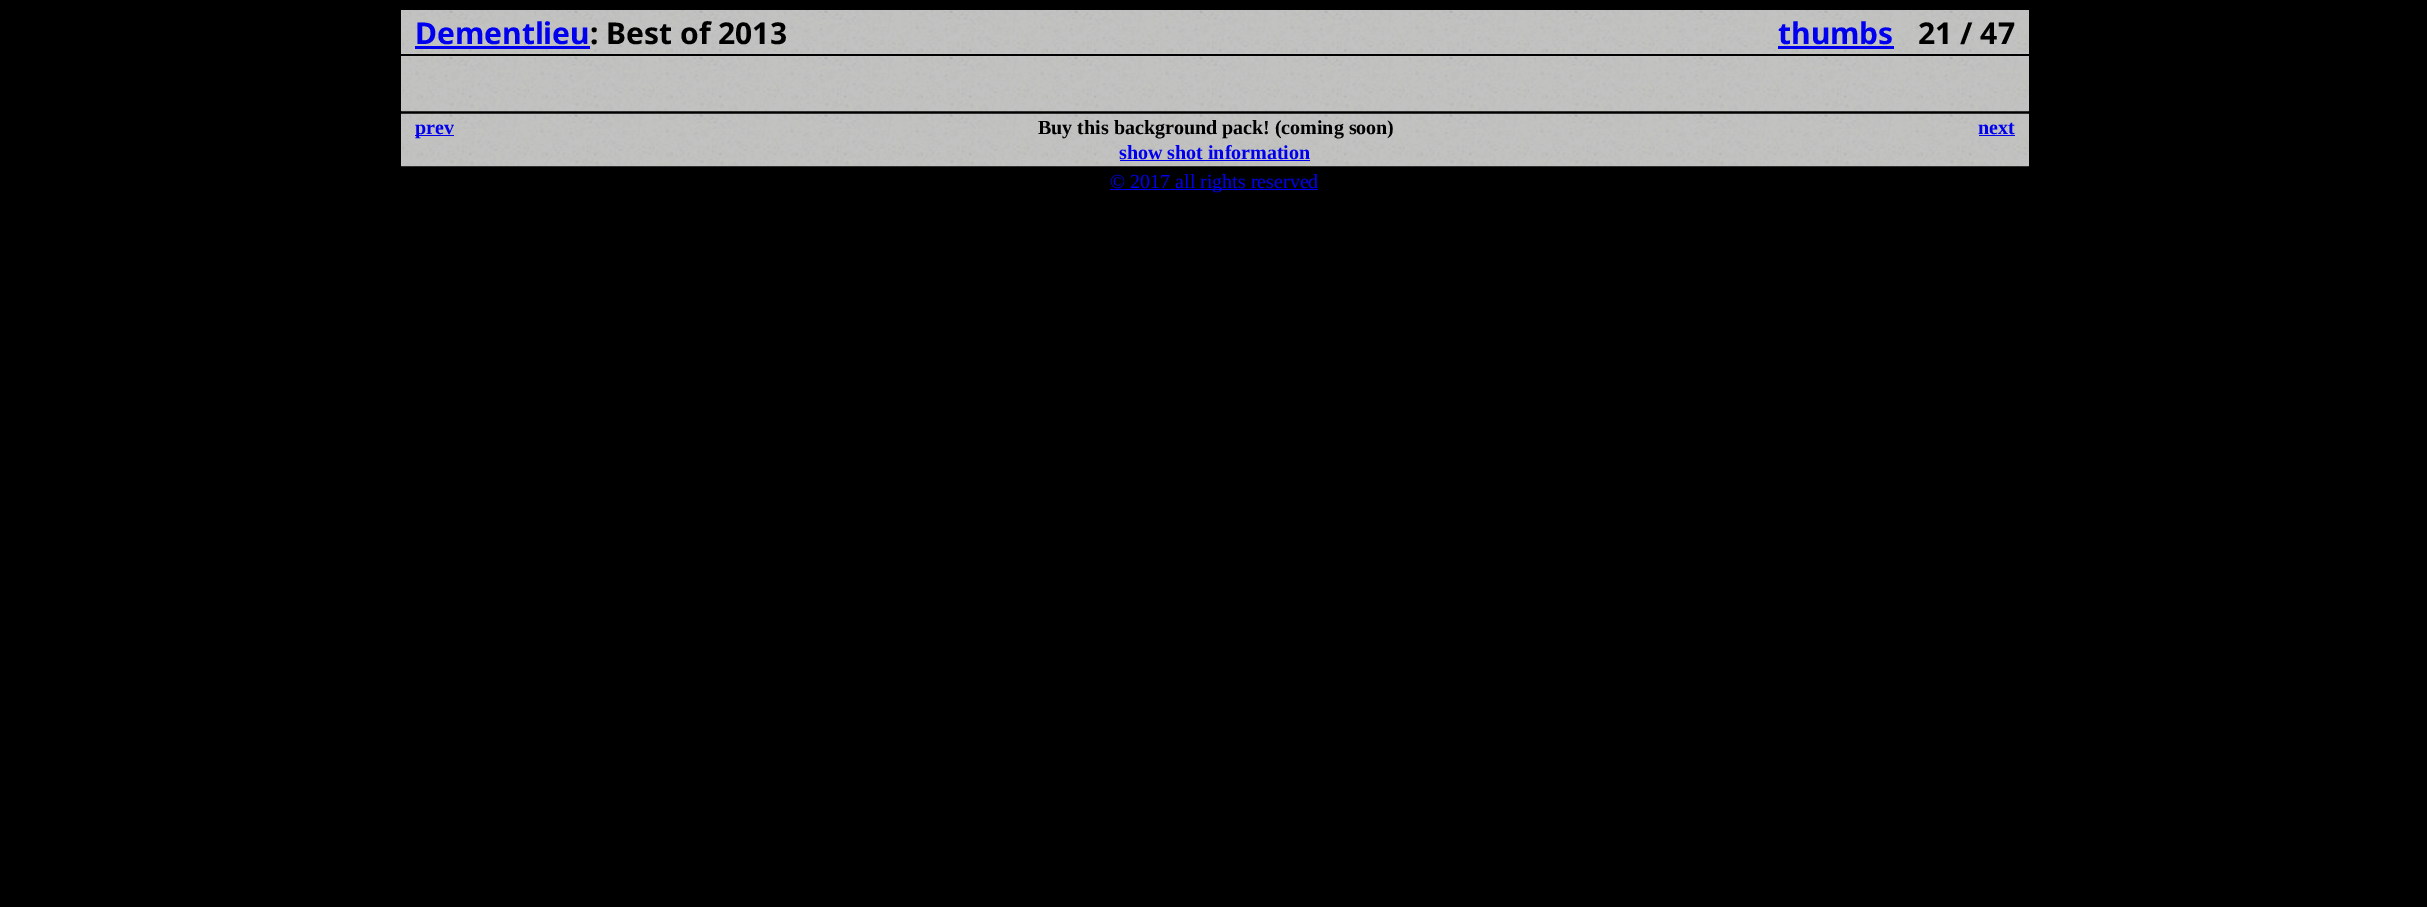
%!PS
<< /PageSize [2427 907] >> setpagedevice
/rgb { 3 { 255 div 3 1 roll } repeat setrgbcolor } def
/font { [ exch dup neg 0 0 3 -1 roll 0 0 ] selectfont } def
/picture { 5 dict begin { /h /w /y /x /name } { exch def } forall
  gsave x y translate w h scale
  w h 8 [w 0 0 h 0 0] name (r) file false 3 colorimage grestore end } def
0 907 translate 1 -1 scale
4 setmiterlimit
0 0 0 rgb
0 0 2427 907 rectfill
204 204 204 rgb
401 10 1628 44 rectfill
(img/1.rgb) 401 10 1628 44 picture
[
  [415 46 175 3 0 0 238]
  [1778 46 116 3 0 0 238]
  [401 56 1628 55 204 204 204]
] { aload pop rgb rectfill } forall
(img/2.rgb) 401 56 1628 56 picture
(img/3.rgb) 401 113 1628 54 picture
[
  [415 135 39 1 0 0 238]
  [1979 135 36 1 0 0 238]
  [1120 160 190 1 0 0 238]
  [1110 189 208 1 0 0 238]
] { aload pop rgb rectfill } forall
/NotoSans-Bold 30 font
415 44 moveto (Dementlieu) show
0 0 0 rgb
590 44 moveto (: Best of 2013) show
0 0 238 rgb
1778 44 moveto (thumbs) show
0 0 0 rgb
1918 44 moveto (21 / 47) show
/LiberationSerif-Bold 20 font
0 0 238 rgb
415 134 moveto (prev) show
0 0 0 rgb
1038 134 moveto (Buy this background pack! \(coming soon\)) show
0 0 238 rgb
1978 134 moveto (next) show
1119 159 moveto (show shot information) show
/LiberationSerif-Regular 20 font
1110 188 moveto (© 2017 all rights reserved) show
showpage
